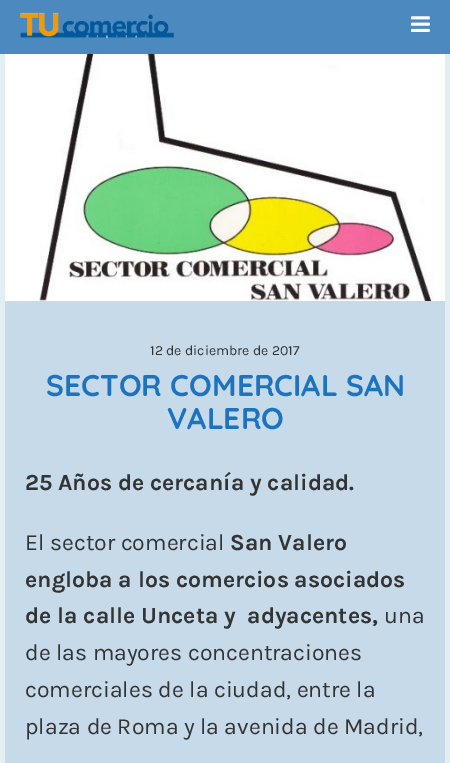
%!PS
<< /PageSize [450 763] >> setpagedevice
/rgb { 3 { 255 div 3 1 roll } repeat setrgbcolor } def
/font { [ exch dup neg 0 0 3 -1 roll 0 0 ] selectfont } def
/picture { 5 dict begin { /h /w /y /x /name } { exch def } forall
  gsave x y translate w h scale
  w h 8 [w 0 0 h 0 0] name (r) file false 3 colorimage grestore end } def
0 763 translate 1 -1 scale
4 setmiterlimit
225 238 242 rgb
0 0 450 763 rectfill
76 137 191 rgb
0 0 450 54 rectfill
(img/1.rgb) 20 12 154 26 picture
(img/2.rgb) 411 16 19 16 picture
199 218 234 rgb
5 301 440 462 rectfill
(img/3.rgb) 5 54 440 247 picture
/Karla-Regular 14 font
51 51 51 rgb
150 355 moveto (12 de diciembre de 2017) show
/Quicksand-Bold 30 font
30 115 190 rgb
46 396 moveto (SECTOR COMERCIAL SAN) show
167 429 moveto (VALERO) show
/Karla-Bold 23 font
51 51 51 rgb
25 490 moveto (25 Años de cercanía y calidad.) show
/Karla-Regular 23 font
25 550 moveto (El sector comercial) show
/Karla-Bold 23 font
[
  [(San Valero) 230 550]
  [(engloba a los comercios asociados) 25 587]
  [(de la calle Unceta y  adyacentes,) 25 623]
] { aload pop moveto show } forall
/Karla-Regular 23 font
[
  [(una) 384 623]
  [(de las mayores concentraciones) 25 660]
  [(comerciales de la ciudad, entre la) 25 697]
  [(plaza de Roma y la avenida de Madrid,) 25 734]
] { aload pop moveto show } forall
showpage
